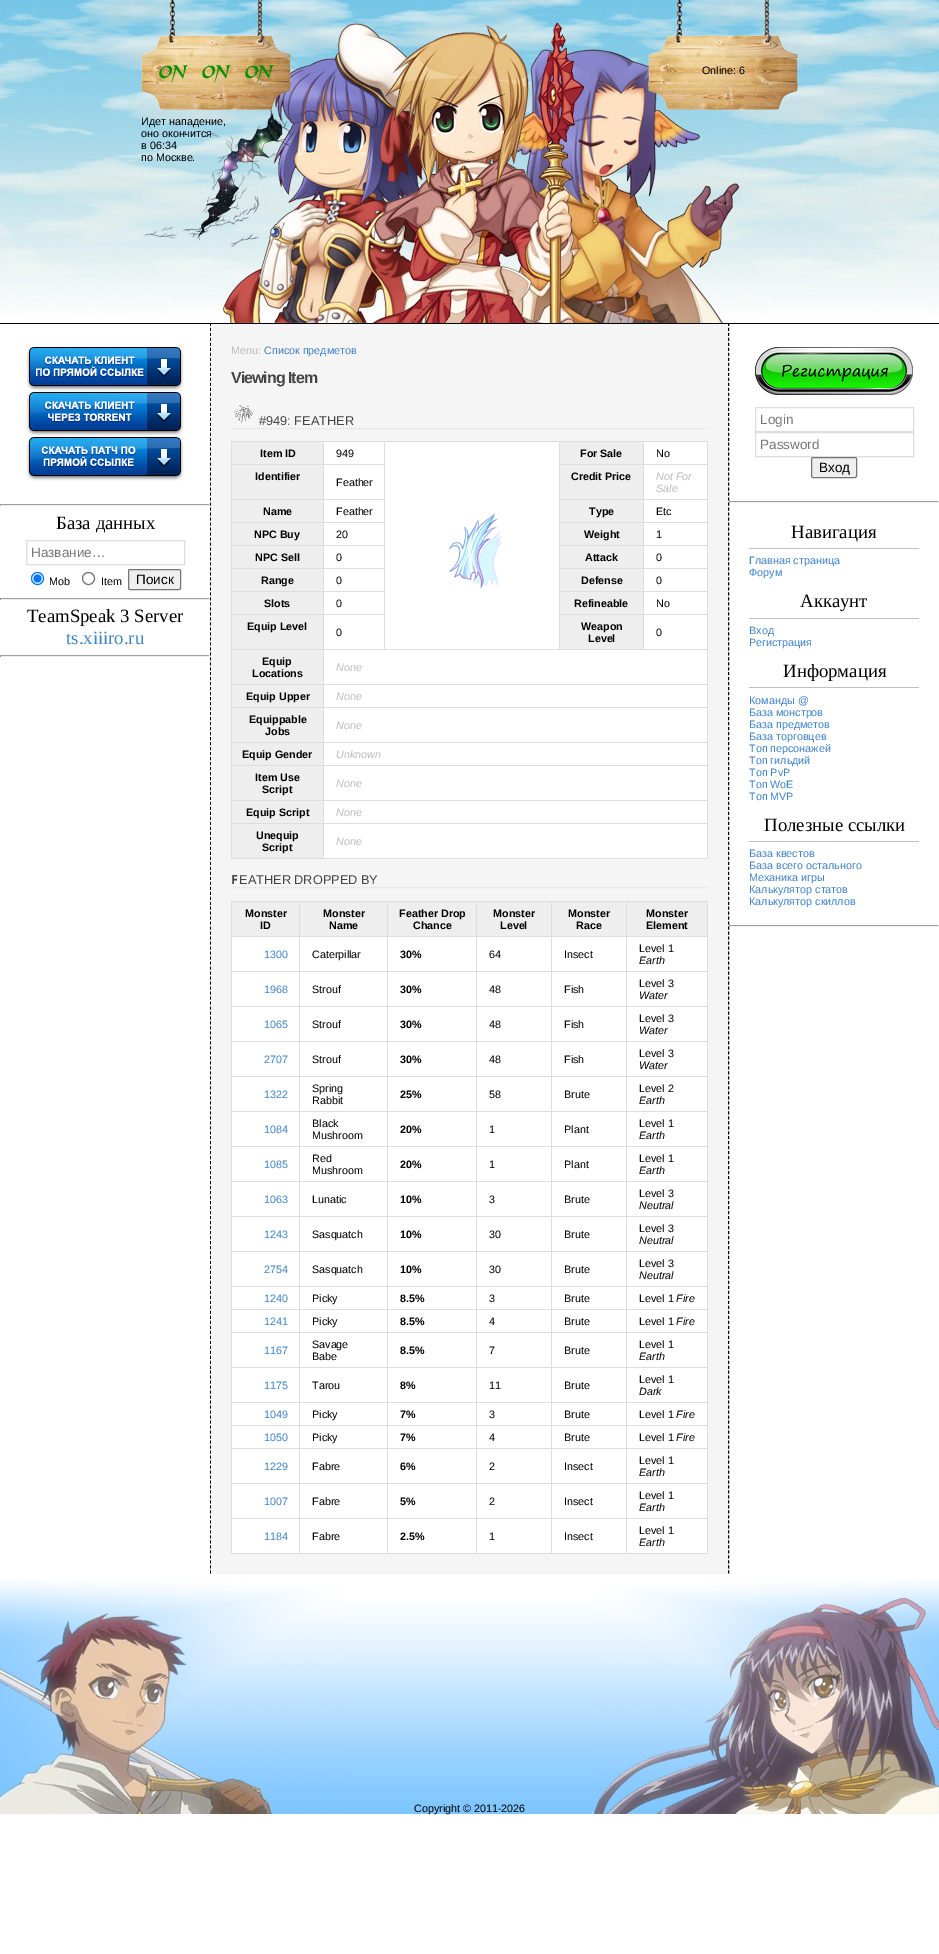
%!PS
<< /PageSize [939 1954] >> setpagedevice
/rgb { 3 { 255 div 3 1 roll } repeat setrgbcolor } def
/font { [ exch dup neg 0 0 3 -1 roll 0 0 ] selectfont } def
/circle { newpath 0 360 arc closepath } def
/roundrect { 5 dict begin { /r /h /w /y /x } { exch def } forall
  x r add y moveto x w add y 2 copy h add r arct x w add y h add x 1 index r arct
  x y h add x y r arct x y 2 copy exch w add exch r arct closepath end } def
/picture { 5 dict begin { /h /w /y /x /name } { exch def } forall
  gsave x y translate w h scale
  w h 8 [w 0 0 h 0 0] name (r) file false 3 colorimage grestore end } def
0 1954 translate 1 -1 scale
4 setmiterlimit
255 255 255 rgb
0 0 939 1954 rectfill
(img/1.rgb) 0 0 939 314 picture
(img/2.rgb) 223 22 517 301 picture
(img/3.rgb) 648 0 150 110 picture
(img/4.rgb) 141 0 150 110 picture
(img/5.rgb) 159 65 29 18 picture
(img/6.rgb) 202 65 29 18 picture
(img/7.rgb) 245 65 29 18 picture
(img/8.rgb) 144 108 147 139 picture
0 0 0 rgb
0 323 728 1 rectfill
[3 1.99] 0 setdash
210.5 323 moveto 210.5 1574 lineto stroke
(img/9.rgb) 26 346 158 45 picture
(img/10.rgb) 26 391 158 45 picture
(img/11.rgb) 26 436 158 45 picture
[
  [0 504 210 1 159 159 159]
  [209 504 1 2 238 238 238]
  [0 505 210 1 238 238 238]
  [0 504 1 2 159 159 159]
] { aload pop rgb rectfill } forall
221 221 221 rgb
[] 0 setdash
26.5 540.5 158 24 rectstroke
0 117 255 rgb
37.5 578.5 6 circle stroke
37.5 578.5 4 circle fill
118 118 118 rgb
88.5 578.5 6 circle stroke
239 239 239 rgb
128.5 569.5 52 20 1.5 roundrect gsave fill grestore
118 118 118 rgb
stroke
[
  [0 598 210 1 159 159 159]
  [209 598 1 2 238 238 238]
  [0 599 210 1 238 238 238]
  [0 598 1 2 159 159 159]
  [0 655 210 1 159 159 159]
  [209 655 1 2 238 238 238]
  [0 656 210 1 238 238 238]
  [0 655 1 2 159 159 159]
  [211 324 517 1250 245 245 245]
] { aload pop rgb rectfill } forall
221 221 221 rgb
[1 1] 0 setdash
231 428.5 moveto 708 428.5 lineto stroke
(img/12.rgb) 234 405 19 18 picture
[
  [232 442 91 22 238 238 238]
  [643 441 65 1 221 221 221]
  [643 464 65 1 221 221 221]
  [643 499 65 1 221 221 221]
  [643 522 65 1 221 221 221]
  [643 545 65 1 221 221 221]
  [643 568 65 1 221 221 221]
  [643 591 65 1 221 221 221]
  [643 614 65 1 221 221 221]
  [323 649 385 1 221 221 221]
  [643 614 1 36 221 221 221]
  [559 614 85 1 221 221 221]
  [643 591 1 24 221 221 221]
  [559 591 85 1 221 221 221]
  [643 568 1 24 221 221 221]
  [559 568 85 1 221 221 221]
  [643 545 1 24 221 221 221]
  [559 545 85 1 221 221 221]
  [643 522 1 24 221 221 221]
  [559 522 85 1 221 221 221]
  [643 499 1 24 221 221 221]
  [559 499 85 1 221 221 221]
  [643 464 1 36 221 221 221]
  [559 464 85 1 221 221 221]
  [643 441 1 24 221 221 221]
  [559 441 85 1 221 221 221]
  [559 614 1 36 221 221 221]
  [559 591 1 24 221 221 221]
  [559 568 1 24 221 221 221]
  [559 545 1 24 221 221 221]
  [559 522 1 24 221 221 221]
  [559 499 1 24 221 221 221]
  [559 464 1 36 221 221 221]
  [559 441 1 24 221 221 221]
  [384 441 176 1 221 221 221]
  [323 464 62 1 221 221 221]
  [323 499 62 1 221 221 221]
  [323 522 62 1 221 221 221]
  [323 545 62 1 221 221 221]
  [323 568 62 1 221 221 221]
  [323 591 62 1 221 221 221]
  [323 614 62 1 221 221 221]
  [384 441 1 209 221 221 221]
  [323 441 62 1 221 221 221]
  [323 684 385 1 221 221 221]
  [323 707 385 1 221 221 221]
  [323 742 385 1 221 221 221]
  [323 765 385 1 221 221 221]
  [323 800 385 1 221 221 221]
  [323 823 385 1 221 221 221]
  [707 823 1 36 221 221 221]
  [323 858 385 1 221 221 221]
  [323 823 1 36 221 221 221]
  [231 823 93 1 221 221 221]
  [323 800 1 24 221 221 221]
  [231 800 93 1 221 221 221]
  [323 765 1 36 221 221 221]
  [231 765 93 1 221 221 221]
  [323 742 1 24 221 221 221]
  [231 742 93 1 221 221 221]
  [323 707 1 36 221 221 221]
  [231 707 93 1 221 221 221]
  [323 684 1 24 221 221 221]
  [231 684 93 1 221 221 221]
  [323 649 1 36 221 221 221]
  [231 649 93 1 221 221 221]
  [323 614 1 36 221 221 221]
  [231 614 93 1 221 221 221]
  [323 591 1 24 221 221 221]
  [231 591 93 1 221 221 221]
  [323 568 1 24 221 221 221]
  [231 568 93 1 221 221 221]
  [323 545 1 24 221 221 221]
  [231 545 93 1 221 221 221]
  [323 522 1 24 221 221 221]
  [231 522 93 1 221 221 221]
  [323 499 1 24 221 221 221]
  [231 499 93 1 221 221 221]
  [323 464 1 36 221 221 221]
  [231 464 93 1 221 221 221]
  [323 441 1 24 221 221 221]
  [231 441 93 1 221 221 221]
  [231 858 93 1 221 221 221]
  [231 823 1 36 221 221 221]
  [231 800 1 24 221 221 221]
  [231 765 1 36 221 221 221]
  [231 742 1 24 221 221 221]
  [231 707 1 36 221 221 221]
  [231 684 1 24 221 221 221]
  [231 649 1 36 221 221 221]
  [231 614 1 36 221 221 221]
  [231 591 1 24 221 221 221]
  [231 568 1 24 221 221 221]
  [231 545 1 24 221 221 221]
  [231 522 1 24 221 221 221]
  [231 499 1 24 221 221 221]
  [231 464 1 36 221 221 221]
  [231 441 1 24 221 221 221]
  [324 442 60 22 255 255 255]
  [385 442 174 207 255 255 255]
] { aload pop rgb rectfill } forall
(img/13.rgb) 449 513 54 76 picture
[
  [560 442 83 22 238 238 238]
  [644 442 63 22 255 255 255]
  [707 800 1 24 221 221 221]
  [707 765 1 36 221 221 221]
  [707 742 1 24 221 221 221]
  [707 707 1 36 221 221 221]
  [707 684 1 24 221 221 221]
  [707 649 1 36 221 221 221]
  [707 614 1 36 221 221 221]
  [707 591 1 24 221 221 221]
  [707 568 1 24 221 221 221]
  [707 545 1 24 221 221 221]
  [707 522 1 24 221 221 221]
  [707 499 1 24 221 221 221]
  [707 464 1 36 221 221 221]
  [707 441 1 24 221 221 221]
  [232 465 91 34 238 238 238]
  [324 465 60 34 255 255 255]
  [560 465 83 34 238 238 238]
  [644 465 63 34 255 255 255]
  [232 500 91 22 238 238 238]
  [324 500 60 22 255 255 255]
  [560 500 83 22 238 238 238]
  [644 500 63 22 255 255 255]
  [232 523 91 22 238 238 238]
  [324 523 60 22 255 255 255]
  [560 523 83 22 238 238 238]
  [644 523 63 22 255 255 255]
  [232 546 91 22 238 238 238]
  [324 546 60 22 255 255 255]
  [560 546 83 22 238 238 238]
  [644 546 63 22 255 255 255]
  [232 569 91 22 238 238 238]
  [324 569 60 22 255 255 255]
  [560 569 83 22 238 238 238]
  [644 569 63 22 255 255 255]
  [232 592 91 22 238 238 238]
  [324 592 60 22 255 255 255]
  [560 592 83 22 238 238 238]
  [644 592 63 22 255 255 255]
  [232 615 91 34 238 238 238]
  [324 615 60 34 255 255 255]
  [560 615 83 34 238 238 238]
  [644 615 63 34 255 255 255]
  [232 650 91 34 238 238 238]
  [324 650 383 34 255 255 255]
  [232 685 91 22 238 238 238]
  [324 685 383 22 255 255 255]
  [232 708 91 34 238 238 238]
  [324 708 383 34 255 255 255]
  [232 743 91 22 238 238 238]
  [324 743 383 22 255 255 255]
  [232 766 91 34 238 238 238]
  [324 766 383 34 255 255 255]
  [232 801 91 22 238 238 238]
  [324 801 383 22 255 255 255]
  [232 824 91 34 238 238 238]
  [324 824 383 34 255 255 255]
] { aload pop rgb rectfill } forall
221 221 221 rgb
231 887.5 moveto 708 887.5 lineto stroke
[
  [232 902 67 34 238 238 238]
  [626 901 82 1 221 221 221]
  [626 936 82 1 221 221 221]
  [626 971 82 1 221 221 221]
  [626 1006 82 1 221 221 221]
  [626 1041 82 1 221 221 221]
  [626 1076 82 1 221 221 221]
  [626 1111 82 1 221 221 221]
  [626 1146 82 1 221 221 221]
  [626 1181 82 1 221 221 221]
  [626 1216 82 1 221 221 221]
  [626 1251 82 1 221 221 221]
  [626 1286 82 1 221 221 221]
  [626 1309 82 1 221 221 221]
  [626 1332 82 1 221 221 221]
  [626 1367 82 1 221 221 221]
  [626 1402 82 1 221 221 221]
  [626 1425 82 1 221 221 221]
  [626 1448 82 1 221 221 221]
  [626 1483 82 1 221 221 221]
  [626 1518 82 1 221 221 221]
  [707 1518 1 36 221 221 221]
  [626 1553 82 1 221 221 221]
  [626 1518 1 36 221 221 221]
  [551 1518 76 1 221 221 221]
  [626 1483 1 36 221 221 221]
  [551 1483 76 1 221 221 221]
  [626 1448 1 36 221 221 221]
  [551 1448 76 1 221 221 221]
  [626 1425 1 24 221 221 221]
  [551 1425 76 1 221 221 221]
  [626 1402 1 24 221 221 221]
  [551 1402 76 1 221 221 221]
  [626 1367 1 36 221 221 221]
  [551 1367 76 1 221 221 221]
  [626 1332 1 36 221 221 221]
  [551 1332 76 1 221 221 221]
  [626 1309 1 24 221 221 221]
  [551 1309 76 1 221 221 221]
  [626 1286 1 24 221 221 221]
  [551 1286 76 1 221 221 221]
  [626 1251 1 36 221 221 221]
  [551 1251 76 1 221 221 221]
  [626 1216 1 36 221 221 221]
  [551 1216 76 1 221 221 221]
  [626 1181 1 36 221 221 221]
  [551 1181 76 1 221 221 221]
  [626 1146 1 36 221 221 221]
  [551 1146 76 1 221 221 221]
  [626 1111 1 36 221 221 221]
  [551 1111 76 1 221 221 221]
  [626 1076 1 36 221 221 221]
  [551 1076 76 1 221 221 221]
  [626 1041 1 36 221 221 221]
  [551 1041 76 1 221 221 221]
  [626 1006 1 36 221 221 221]
  [551 1006 76 1 221 221 221]
  [626 971 1 36 221 221 221]
  [551 971 76 1 221 221 221]
  [626 936 1 36 221 221 221]
  [551 936 76 1 221 221 221]
  [626 901 1 36 221 221 221]
  [551 901 76 1 221 221 221]
  [551 1553 76 1 221 221 221]
  [551 1518 1 36 221 221 221]
  [476 1518 76 1 221 221 221]
  [551 1483 1 36 221 221 221]
  [476 1483 76 1 221 221 221]
  [551 1448 1 36 221 221 221]
  [476 1448 76 1 221 221 221]
  [551 1425 1 24 221 221 221]
  [476 1425 76 1 221 221 221]
  [551 1402 1 24 221 221 221]
  [476 1402 76 1 221 221 221]
  [551 1367 1 36 221 221 221]
  [476 1367 76 1 221 221 221]
  [551 1332 1 36 221 221 221]
  [476 1332 76 1 221 221 221]
  [551 1309 1 24 221 221 221]
  [476 1309 76 1 221 221 221]
  [551 1286 1 24 221 221 221]
  [476 1286 76 1 221 221 221]
  [551 1251 1 36 221 221 221]
  [476 1251 76 1 221 221 221]
  [551 1216 1 36 221 221 221]
  [476 1216 76 1 221 221 221]
  [551 1181 1 36 221 221 221]
  [476 1181 76 1 221 221 221]
  [551 1146 1 36 221 221 221]
  [476 1146 76 1 221 221 221]
  [551 1111 1 36 221 221 221]
  [476 1111 76 1 221 221 221]
  [551 1076 1 36 221 221 221]
  [476 1076 76 1 221 221 221]
  [551 1041 1 36 221 221 221]
  [476 1041 76 1 221 221 221]
  [551 1006 1 36 221 221 221]
  [476 1006 76 1 221 221 221]
  [551 971 1 36 221 221 221]
  [476 971 76 1 221 221 221]
  [551 936 1 36 221 221 221]
  [476 936 76 1 221 221 221]
  [551 901 1 36 221 221 221]
  [476 901 76 1 221 221 221]
  [476 1553 76 1 221 221 221]
  [476 1518 1 36 221 221 221]
  [387 1518 90 1 221 221 221]
  [476 1483 1 36 221 221 221]
  [387 1483 90 1 221 221 221]
  [476 1448 1 36 221 221 221]
  [387 1448 90 1 221 221 221]
  [476 1425 1 24 221 221 221]
  [387 1425 90 1 221 221 221]
  [476 1402 1 24 221 221 221]
  [387 1402 90 1 221 221 221]
  [476 1367 1 36 221 221 221]
  [387 1367 90 1 221 221 221]
  [476 1332 1 36 221 221 221]
  [387 1332 90 1 221 221 221]
  [476 1309 1 24 221 221 221]
  [387 1309 90 1 221 221 221]
  [476 1286 1 24 221 221 221]
  [387 1286 90 1 221 221 221]
  [476 1251 1 36 221 221 221]
  [387 1251 90 1 221 221 221]
  [476 1216 1 36 221 221 221]
  [387 1216 90 1 221 221 221]
  [476 1181 1 36 221 221 221]
  [387 1181 90 1 221 221 221]
  [476 1146 1 36 221 221 221]
  [387 1146 90 1 221 221 221]
  [476 1111 1 36 221 221 221]
  [387 1111 90 1 221 221 221]
  [476 1076 1 36 221 221 221]
  [387 1076 90 1 221 221 221]
  [476 1041 1 36 221 221 221]
  [387 1041 90 1 221 221 221]
  [476 1006 1 36 221 221 221]
  [387 1006 90 1 221 221 221]
  [476 971 1 36 221 221 221]
  [387 971 90 1 221 221 221]
  [476 936 1 36 221 221 221]
  [387 936 90 1 221 221 221]
  [476 901 1 36 221 221 221]
  [387 901 90 1 221 221 221]
  [387 1553 90 1 221 221 221]
  [387 1518 1 36 221 221 221]
  [299 1518 89 1 221 221 221]
  [387 1483 1 36 221 221 221]
  [299 1483 89 1 221 221 221]
  [387 1448 1 36 221 221 221]
  [299 1448 89 1 221 221 221]
  [387 1425 1 24 221 221 221]
  [299 1425 89 1 221 221 221]
  [387 1402 1 24 221 221 221]
  [299 1402 89 1 221 221 221]
  [387 1367 1 36 221 221 221]
  [299 1367 89 1 221 221 221]
  [387 1332 1 36 221 221 221]
  [299 1332 89 1 221 221 221]
  [387 1309 1 24 221 221 221]
  [299 1309 89 1 221 221 221]
  [387 1286 1 24 221 221 221]
  [299 1286 89 1 221 221 221]
  [387 1251 1 36 221 221 221]
  [299 1251 89 1 221 221 221]
  [387 1216 1 36 221 221 221]
  [299 1216 89 1 221 221 221]
  [387 1181 1 36 221 221 221]
  [299 1181 89 1 221 221 221]
  [387 1146 1 36 221 221 221]
  [299 1146 89 1 221 221 221]
  [387 1111 1 36 221 221 221]
  [299 1111 89 1 221 221 221]
  [387 1076 1 36 221 221 221]
  [299 1076 89 1 221 221 221]
  [387 1041 1 36 221 221 221]
  [299 1041 89 1 221 221 221]
  [387 1006 1 36 221 221 221]
  [299 1006 89 1 221 221 221]
  [387 971 1 36 221 221 221]
  [299 971 89 1 221 221 221]
  [387 936 1 36 221 221 221]
  [299 936 89 1 221 221 221]
  [387 901 1 36 221 221 221]
  [299 901 89 1 221 221 221]
  [299 1553 89 1 221 221 221]
  [299 1518 1 36 221 221 221]
  [231 1518 69 1 221 221 221]
  [299 1483 1 36 221 221 221]
  [231 1483 69 1 221 221 221]
  [299 1448 1 36 221 221 221]
  [231 1448 69 1 221 221 221]
  [299 1425 1 24 221 221 221]
  [231 1425 69 1 221 221 221]
  [299 1402 1 24 221 221 221]
  [231 1402 69 1 221 221 221]
  [299 1367 1 36 221 221 221]
  [231 1367 69 1 221 221 221]
  [299 1332 1 36 221 221 221]
  [231 1332 69 1 221 221 221]
  [299 1309 1 24 221 221 221]
  [231 1309 69 1 221 221 221]
  [299 1286 1 24 221 221 221]
  [231 1286 69 1 221 221 221]
  [299 1251 1 36 221 221 221]
  [231 1251 69 1 221 221 221]
  [299 1216 1 36 221 221 221]
  [231 1216 69 1 221 221 221]
  [299 1181 1 36 221 221 221]
  [231 1181 69 1 221 221 221]
  [299 1146 1 36 221 221 221]
  [231 1146 69 1 221 221 221]
  [299 1111 1 36 221 221 221]
  [231 1111 69 1 221 221 221]
  [299 1076 1 36 221 221 221]
  [231 1076 69 1 221 221 221]
  [299 1041 1 36 221 221 221]
  [231 1041 69 1 221 221 221]
  [299 1006 1 36 221 221 221]
  [231 1006 69 1 221 221 221]
  [299 971 1 36 221 221 221]
  [231 971 69 1 221 221 221]
  [299 936 1 36 221 221 221]
  [231 936 69 1 221 221 221]
  [299 901 1 36 221 221 221]
  [231 901 69 1 221 221 221]
  [231 1553 69 1 221 221 221]
  [231 1518 1 36 221 221 221]
  [231 1483 1 36 221 221 221]
  [231 1448 1 36 221 221 221]
  [231 1425 1 24 221 221 221]
  [231 1402 1 24 221 221 221]
  [231 1367 1 36 221 221 221]
  [231 1332 1 36 221 221 221]
  [231 1309 1 24 221 221 221]
  [231 1286 1 24 221 221 221]
  [231 1251 1 36 221 221 221]
  [231 1216 1 36 221 221 221]
  [231 1181 1 36 221 221 221]
  [231 1146 1 36 221 221 221]
  [231 1111 1 36 221 221 221]
  [231 1076 1 36 221 221 221]
  [231 1041 1 36 221 221 221]
  [231 1006 1 36 221 221 221]
  [231 971 1 36 221 221 221]
  [231 936 1 36 221 221 221]
  [231 901 1 36 221 221 221]
  [300 902 87 34 238 238 238]
  [388 902 88 34 238 238 238]
  [477 902 74 34 238 238 238]
  [552 902 74 34 238 238 238]
  [627 902 80 34 238 238 238]
  [707 1483 1 36 221 221 221]
  [707 1448 1 36 221 221 221]
  [707 1425 1 24 221 221 221]
  [707 1402 1 24 221 221 221]
  [707 1367 1 36 221 221 221]
  [707 1332 1 36 221 221 221]
  [707 1309 1 24 221 221 221]
  [707 1286 1 24 221 221 221]
  [707 1251 1 36 221 221 221]
  [707 1216 1 36 221 221 221]
  [707 1181 1 36 221 221 221]
  [707 1146 1 36 221 221 221]
  [707 1111 1 36 221 221 221]
  [707 1076 1 36 221 221 221]
  [707 1041 1 36 221 221 221]
  [707 1006 1 36 221 221 221]
  [707 971 1 36 221 221 221]
  [707 936 1 36 221 221 221]
  [707 901 1 36 221 221 221]
  [232 937 67 34 255 255 255]
  [300 937 87 34 255 255 255]
  [388 937 88 34 255 255 255]
  [477 937 74 34 255 255 255]
  [552 937 74 34 255 255 255]
  [627 937 80 34 255 255 255]
  [232 972 67 34 255 255 255]
  [300 972 87 34 255 255 255]
  [388 972 88 34 255 255 255]
  [477 972 74 34 255 255 255]
  [552 972 74 34 255 255 255]
  [627 972 80 34 255 255 255]
  [232 1007 67 34 255 255 255]
  [300 1007 87 34 255 255 255]
  [388 1007 88 34 255 255 255]
  [477 1007 74 34 255 255 255]
  [552 1007 74 34 255 255 255]
  [627 1007 80 34 255 255 255]
  [232 1042 67 34 255 255 255]
  [300 1042 87 34 255 255 255]
  [388 1042 88 34 255 255 255]
  [477 1042 74 34 255 255 255]
  [552 1042 74 34 255 255 255]
  [627 1042 80 34 255 255 255]
  [232 1077 67 34 255 255 255]
  [300 1077 87 34 255 255 255]
  [388 1077 88 34 255 255 255]
  [477 1077 74 34 255 255 255]
  [552 1077 74 34 255 255 255]
  [627 1077 80 34 255 255 255]
  [232 1112 67 34 255 255 255]
  [300 1112 87 34 255 255 255]
  [388 1112 88 34 255 255 255]
  [477 1112 74 34 255 255 255]
  [552 1112 74 34 255 255 255]
  [627 1112 80 34 255 255 255]
  [232 1147 67 34 255 255 255]
  [300 1147 87 34 255 255 255]
  [388 1147 88 34 255 255 255]
  [477 1147 74 34 255 255 255]
  [552 1147 74 34 255 255 255]
  [627 1147 80 34 255 255 255]
  [232 1182 67 34 255 255 255]
  [300 1182 87 34 255 255 255]
  [388 1182 88 34 255 255 255]
  [477 1182 74 34 255 255 255]
  [552 1182 74 34 255 255 255]
  [627 1182 80 34 255 255 255]
  [232 1217 67 34 255 255 255]
  [300 1217 87 34 255 255 255]
  [388 1217 88 34 255 255 255]
  [477 1217 74 34 255 255 255]
  [552 1217 74 34 255 255 255]
  [627 1217 80 34 255 255 255]
  [232 1252 67 34 255 255 255]
  [300 1252 87 34 255 255 255]
  [388 1252 88 34 255 255 255]
  [477 1252 74 34 255 255 255]
  [552 1252 74 34 255 255 255]
  [627 1252 80 34 255 255 255]
  [232 1287 67 22 255 255 255]
  [300 1287 87 22 255 255 255]
  [388 1287 88 22 255 255 255]
  [477 1287 74 22 255 255 255]
  [552 1287 74 22 255 255 255]
  [627 1287 80 22 255 255 255]
  [232 1310 67 22 255 255 255]
  [300 1310 87 22 255 255 255]
  [388 1310 88 22 255 255 255]
  [477 1310 74 22 255 255 255]
  [552 1310 74 22 255 255 255]
  [627 1310 80 22 255 255 255]
  [232 1333 67 34 255 255 255]
  [300 1333 87 34 255 255 255]
  [388 1333 88 34 255 255 255]
  [477 1333 74 34 255 255 255]
  [552 1333 74 34 255 255 255]
  [627 1333 80 34 255 255 255]
  [232 1368 67 34 255 255 255]
  [300 1368 87 34 255 255 255]
  [388 1368 88 34 255 255 255]
  [477 1368 74 34 255 255 255]
  [552 1368 74 34 255 255 255]
  [627 1368 80 34 255 255 255]
  [232 1403 67 22 255 255 255]
  [300 1403 87 22 255 255 255]
  [388 1403 88 22 255 255 255]
  [477 1403 74 22 255 255 255]
  [552 1403 74 22 255 255 255]
  [627 1403 80 22 255 255 255]
  [232 1426 67 22 255 255 255]
  [300 1426 87 22 255 255 255]
  [388 1426 88 22 255 255 255]
  [477 1426 74 22 255 255 255]
  [552 1426 74 22 255 255 255]
  [627 1426 80 22 255 255 255]
  [232 1449 67 34 255 255 255]
  [300 1449 87 34 255 255 255]
  [388 1449 88 34 255 255 255]
  [477 1449 74 34 255 255 255]
  [552 1449 74 34 255 255 255]
  [627 1449 80 34 255 255 255]
  [232 1484 67 34 255 255 255]
  [300 1484 87 34 255 255 255]
  [388 1484 88 34 255 255 255]
  [477 1484 74 34 255 255 255]
  [552 1484 74 34 255 255 255]
  [627 1484 80 34 255 255 255]
  [232 1519 67 34 255 255 255]
  [300 1519 87 34 255 255 255]
  [388 1519 88 34 255 255 255]
  [477 1519 74 34 255 255 255]
  [552 1519 74 34 255 255 255]
  [627 1519 80 34 255 255 255]
  [728 323 211 1 0 0 0]
] { aload pop rgb rectfill } forall
[3 1.99] 0 setdash
728.5 323 moveto 728.5 1574 lineto stroke
(img/14.rgb) 755 347 158 48 picture
221 221 221 rgb
[] 0 setdash
755.5 407.5 158 24 rectstroke
755.5 432.5 158 24 rectstroke
239 239 239 rgb
811.5 457.5 45 20 1.5 roundrect gsave fill grestore
118 118 118 rgb
stroke
[
  [729 501 210 1 159 159 159]
  [938 501 1 2 238 238 238]
  [729 502 210 1 238 238 238]
  [729 501 1 2 159 159 159]
  [749 548 170 1 192 192 192]
  [749 618 170 1 192 192 192]
  [749 687 170 1 192 192 192]
  [749 841 170 1 192 192 192]
  [729 925 210 1 159 159 159]
  [938 925 1 2 238 238 238]
  [729 926 210 1 238 238 238]
  [729 925 1 2 159 159 159]
] { aload pop rgb rectfill } forall
(img/15.rgb) 345 1602 247 212 picture
(img/16.rgb) 0 1579 345 235 picture
(img/17.rgb) 592 1579 347 235 picture
/LiberationSans-Regular 10.75 font
0 0 0 rgb
[
  [(Online: 6) 702 74]
  [(Идет нападение,) 141 125]
  [(оно окончится) 141 137]
  [(в 06:34) 141 149]
  [(по Москве.) 141 161]
] { aload pop moveto show } forall
/LiberationSerif-Regular 18.75 font
56 529 moveto (База данных) show
/LiberationSans-Regular 13.5 font
117 117 117 rgb
31 557 moveto (Название…) show
/LiberationSans-Regular 10.75 font
0 0 0 rgb
49 585 moveto (Mob) show
101 585 moveto (Item) show
/LiberationSans-Regular 13.5 font
136 584 moveto (Поиск) show
/LiberationSerif-Regular 18.75 font
27 622 moveto (TeamSpeak 3 Server) show
64 131 198 rgb
66 644 moveto (ts.xiiiro.ru) show
/LiberationSans-Regular 10.75 font
187 187 187 rgb
231 354 moveto (Menu:) show
64 131 198 rgb
264 354 moveto (Список предметов) show
/LiberationSans-Bold 16 font
68 68 68 rgb
231 383 moveto -1 0 (Viewing Item) ashow
/LiberationSans-Regular 12.75 font
259 425 moveto (#949: FEATHER) show
/LiberationSans-Bold 10.75 font
0 0 0 rgb
260 457 moveto (Item ID) show
/LiberationSans-Regular 10.75 font
336 457 moveto (949) show
/LiberationSans-Bold 10.75 font
580 457 moveto (For Sale) show
/LiberationSans-Regular 10.75 font
656 457 moveto (No) show
/LiberationSans-Bold 10.75 font
255 480 moveto (Identifier) show
/LiberationSans-Regular 10.75 font
336 486 moveto (Feather) show
/LiberationSans-Bold 10.75 font
571 480 moveto (Credit Price) show
/LiberationSans-Italic 10.75 font
187 187 187 rgb
656 480 moveto (Not For) show
656 492 moveto (Sale) show
/LiberationSans-Bold 10.75 font
0 0 0 rgb
263 515 moveto (Name) show
/LiberationSans-Regular 10.75 font
336 515 moveto (Feather) show
/LiberationSans-Bold 10.75 font
589 515 moveto (Type) show
/LiberationSans-Regular 10.75 font
656 515 moveto (Etc) show
/LiberationSans-Bold 10.75 font
254 538 moveto (NPC Buy) show
/LiberationSans-Regular 10.75 font
336 538 moveto (20) show
/LiberationSans-Bold 10.75 font
584 538 moveto (Weight) show
/LiberationSans-Regular 10.75 font
656 538 moveto (1) show
/LiberationSans-Bold 10.75 font
255 561 moveto (NPC Sell) show
/LiberationSans-Regular 10.75 font
336 561 moveto (0) show
/LiberationSans-Bold 10.75 font
585 561 moveto (Attack) show
/LiberationSans-Regular 10.75 font
656 561 moveto (0) show
/LiberationSans-Bold 10.75 font
261 584 moveto (Range) show
/LiberationSans-Regular 10.75 font
336 584 moveto (0) show
/LiberationSans-Bold 10.75 font
581 584 moveto (Defense) show
/LiberationSans-Regular 10.75 font
656 584 moveto (0) show
/LiberationSans-Bold 10.75 font
264 607 moveto (Slots) show
/LiberationSans-Regular 10.75 font
336 607 moveto (0) show
/LiberationSans-Bold 10.75 font
574 607 moveto (Refineable) show
/LiberationSans-Regular 10.75 font
656 607 moveto (No) show
/LiberationSans-Bold 10.75 font
247 630 moveto (Equip Level) show
/LiberationSans-Regular 10.75 font
336 636 moveto (0) show
/LiberationSans-Bold 10.75 font
581 630 moveto (Weapon) show
588 642 moveto (Level) show
/LiberationSans-Regular 10.75 font
656 636 moveto (0) show
/LiberationSans-Bold 10.75 font
262 665 moveto (Equip) show
252 677 moveto (Locations) show
/LiberationSans-Italic 10.75 font
187 187 187 rgb
336 671 moveto (None) show
/LiberationSans-Bold 10.75 font
0 0 0 rgb
246 700 moveto (Equip Upper) show
/LiberationSans-Italic 10.75 font
187 187 187 rgb
336 700 moveto (None) show
/LiberationSans-Bold 10.75 font
0 0 0 rgb
249 723 moveto (Equippable) show
265 735 moveto (Jobs) show
/LiberationSans-Italic 10.75 font
187 187 187 rgb
336 729 moveto (None) show
/LiberationSans-Bold 10.75 font
0 0 0 rgb
242 758 moveto (Equip Gender) show
/LiberationSans-Italic 10.75 font
187 187 187 rgb
336 758 moveto (Unknown) show
/LiberationSans-Bold 10.75 font
0 0 0 rgb
255 781 moveto (Item Use) show
262 793 moveto (Script) show
/LiberationSans-Italic 10.75 font
187 187 187 rgb
336 787 moveto (None) show
/LiberationSans-Bold 10.75 font
0 0 0 rgb
246 816 moveto (Equip Script) show
/LiberationSans-Italic 10.75 font
187 187 187 rgb
336 816 moveto (None) show
/LiberationSans-Bold 10.75 font
0 0 0 rgb
256 839 moveto (Unequip) show
262 851 moveto (Script) show
/LiberationSans-Italic 10.75 font
187 187 187 rgb
336 845 moveto (None) show
/NotoSans-Bold 12.75 font
68 68 68 rgb
231 884 moveto (F) show
/LiberationSans-Regular 12.75 font
239 884 moveto (EATHER DROPPED BY) show
/LiberationSans-Bold 10.75 font
0 0 0 rgb
[
  [(Monster) 245 917]
  [(ID) 260 929]
  [(Monster) 323 917]
  [(Name) 329 929]
  [(Feather Drop) 399 917]
  [(Chance) 413 929]
  [(Monster) 493 917]
  [(Level) 500 929]
  [(Monster) 568 917]
  [(Race) 576 929]
  [(Monster) 646 917]
  [(Element) 646 929]
] { aload pop moveto show } forall
/LiberationSans-Regular 10.75 font
64 131 198 rgb
264 958 moveto (1300) show
0 0 0 rgb
312 958 moveto (Caterpillar) show
/LiberationSans-Bold 10.75 font
400 958 moveto (30%) show
/LiberationSans-Regular 10.75 font
[
  [(64) 489 958]
  [(Insect) 564 958]
  [(Level 1) 639 952]
] { aload pop moveto show } forall
/LiberationSans-Italic 10.75 font
639 964 moveto (Earth) show
/LiberationSans-Regular 10.75 font
64 131 198 rgb
264 993 moveto (1968) show
0 0 0 rgb
312 993 moveto (Strouf) show
/LiberationSans-Bold 10.75 font
400 993 moveto (30%) show
/LiberationSans-Regular 10.75 font
[
  [(48) 489 993]
  [(Fish) 564 993]
  [(Level 3) 639 987]
] { aload pop moveto show } forall
/LiberationSans-Italic 10.75 font
639 999 moveto (Water) show
/LiberationSans-Regular 10.75 font
64 131 198 rgb
264 1028 moveto (1065) show
0 0 0 rgb
312 1028 moveto (Strouf) show
/LiberationSans-Bold 10.75 font
400 1028 moveto (30%) show
/LiberationSans-Regular 10.75 font
[
  [(48) 489 1028]
  [(Fish) 564 1028]
  [(Level 3) 639 1022]
] { aload pop moveto show } forall
/LiberationSans-Italic 10.75 font
639 1034 moveto (Water) show
/LiberationSans-Regular 10.75 font
64 131 198 rgb
264 1063 moveto (2707) show
0 0 0 rgb
312 1063 moveto (Strouf) show
/LiberationSans-Bold 10.75 font
400 1063 moveto (30%) show
/LiberationSans-Regular 10.75 font
[
  [(48) 489 1063]
  [(Fish) 564 1063]
  [(Level 3) 639 1057]
] { aload pop moveto show } forall
/LiberationSans-Italic 10.75 font
639 1069 moveto (Water) show
/LiberationSans-Regular 10.75 font
64 131 198 rgb
264 1098 moveto (1322) show
0 0 0 rgb
312 1092 moveto (Spring) show
312 1104 moveto (Rabbit) show
/LiberationSans-Bold 10.75 font
400 1098 moveto (25%) show
/LiberationSans-Regular 10.75 font
[
  [(58) 489 1098]
  [(Brute) 564 1098]
  [(Level 2) 639 1092]
] { aload pop moveto show } forall
/LiberationSans-Italic 10.75 font
639 1104 moveto (Earth) show
/LiberationSans-Regular 10.75 font
64 131 198 rgb
264 1133 moveto (1084) show
0 0 0 rgb
312 1127 moveto (Black) show
312 1139 moveto (Mushroom) show
/LiberationSans-Bold 10.75 font
400 1133 moveto (20%) show
/LiberationSans-Regular 10.75 font
[
  [(1) 489 1133]
  [(Plant) 564 1133]
  [(Level 1) 639 1127]
] { aload pop moveto show } forall
/LiberationSans-Italic 10.75 font
639 1139 moveto (Earth) show
/LiberationSans-Regular 10.75 font
64 131 198 rgb
264 1168 moveto (1085) show
0 0 0 rgb
312 1162 moveto (Red) show
312 1174 moveto (Mushroom) show
/LiberationSans-Bold 10.75 font
400 1168 moveto (20%) show
/LiberationSans-Regular 10.75 font
[
  [(1) 489 1168]
  [(Plant) 564 1168]
  [(Level 1) 639 1162]
] { aload pop moveto show } forall
/LiberationSans-Italic 10.75 font
639 1174 moveto (Earth) show
/LiberationSans-Regular 10.75 font
64 131 198 rgb
264 1203 moveto (1063) show
0 0 0 rgb
312 1203 moveto (Lunatic) show
/LiberationSans-Bold 10.75 font
400 1203 moveto (10%) show
/LiberationSans-Regular 10.75 font
[
  [(3) 489 1203]
  [(Brute) 564 1203]
  [(Level 3) 639 1197]
] { aload pop moveto show } forall
/LiberationSans-Italic 10.75 font
639 1209 moveto (Neutral) show
/LiberationSans-Regular 10.75 font
64 131 198 rgb
264 1238 moveto (1243) show
0 0 0 rgb
312 1238 moveto (Sasquatch) show
/LiberationSans-Bold 10.75 font
400 1238 moveto (10%) show
/LiberationSans-Regular 10.75 font
[
  [(30) 489 1238]
  [(Brute) 564 1238]
  [(Level 3) 639 1232]
] { aload pop moveto show } forall
/LiberationSans-Italic 10.75 font
639 1244 moveto (Neutral) show
/LiberationSans-Regular 10.75 font
64 131 198 rgb
264 1273 moveto (2754) show
0 0 0 rgb
312 1273 moveto (Sasquatch) show
/LiberationSans-Bold 10.75 font
400 1273 moveto (10%) show
/LiberationSans-Regular 10.75 font
[
  [(30) 489 1273]
  [(Brute) 564 1273]
  [(Level 3) 639 1267]
] { aload pop moveto show } forall
/LiberationSans-Italic 10.75 font
639 1279 moveto (Neutral) show
/LiberationSans-Regular 10.75 font
64 131 198 rgb
264 1302 moveto (1240) show
0 0 0 rgb
312 1302 moveto (Picky) show
/LiberationSans-Bold 10.75 font
400 1302 moveto (8.5%) show
/LiberationSans-Regular 10.75 font
[
  [(3) 489 1302]
  [(Brute) 564 1302]
  [(Level 1) 639 1302]
] { aload pop moveto show } forall
/LiberationSans-Italic 10.75 font
676 1302 moveto (Fire) show
/LiberationSans-Regular 10.75 font
64 131 198 rgb
264 1325 moveto (1241) show
0 0 0 rgb
312 1325 moveto (Picky) show
/LiberationSans-Bold 10.75 font
400 1325 moveto (8.5%) show
/LiberationSans-Regular 10.75 font
[
  [(4) 489 1325]
  [(Brute) 564 1325]
  [(Level 1) 639 1325]
] { aload pop moveto show } forall
/LiberationSans-Italic 10.75 font
676 1325 moveto (Fire) show
/LiberationSans-Regular 10.75 font
64 131 198 rgb
264 1354 moveto (1167) show
0 0 0 rgb
312 1348 moveto (Savage) show
312 1360 moveto (Babe) show
/LiberationSans-Bold 10.75 font
400 1354 moveto (8.5%) show
/LiberationSans-Regular 10.75 font
[
  [(7) 489 1354]
  [(Brute) 564 1354]
  [(Level 1) 639 1348]
] { aload pop moveto show } forall
/LiberationSans-Italic 10.75 font
639 1360 moveto (Earth) show
/LiberationSans-Regular 10.75 font
64 131 198 rgb
264 1389 moveto (1175) show
0 0 0 rgb
312 1389 moveto (Tarou) show
/LiberationSans-Bold 10.75 font
400 1389 moveto (8%) show
/LiberationSans-Regular 10.75 font
[
  [(11) 489 1389]
  [(Brute) 564 1389]
  [(Level 1) 639 1383]
] { aload pop moveto show } forall
/LiberationSans-Italic 10.75 font
639 1395 moveto (Dark) show
/LiberationSans-Regular 10.75 font
64 131 198 rgb
264 1418 moveto (1049) show
0 0 0 rgb
312 1418 moveto (Picky) show
/LiberationSans-Bold 10.75 font
400 1418 moveto (7%) show
/LiberationSans-Regular 10.75 font
[
  [(3) 489 1418]
  [(Brute) 564 1418]
  [(Level 1) 639 1418]
] { aload pop moveto show } forall
/LiberationSans-Italic 10.75 font
676 1418 moveto (Fire) show
/LiberationSans-Regular 10.75 font
64 131 198 rgb
264 1441 moveto (1050) show
0 0 0 rgb
312 1441 moveto (Picky) show
/LiberationSans-Bold 10.75 font
400 1441 moveto (7%) show
/LiberationSans-Regular 10.75 font
[
  [(4) 489 1441]
  [(Brute) 564 1441]
  [(Level 1) 639 1441]
] { aload pop moveto show } forall
/LiberationSans-Italic 10.75 font
676 1441 moveto (Fire) show
/LiberationSans-Regular 10.75 font
64 131 198 rgb
264 1470 moveto (1229) show
0 0 0 rgb
312 1470 moveto (Fabre) show
/LiberationSans-Bold 10.75 font
400 1470 moveto (6%) show
/LiberationSans-Regular 10.75 font
[
  [(2) 489 1470]
  [(Insect) 564 1470]
  [(Level 1) 639 1464]
] { aload pop moveto show } forall
/LiberationSans-Italic 10.75 font
639 1476 moveto (Earth) show
/LiberationSans-Regular 10.75 font
64 131 198 rgb
264 1505 moveto (1007) show
0 0 0 rgb
312 1505 moveto (Fabre) show
/LiberationSans-Bold 10.75 font
400 1505 moveto (5%) show
/LiberationSans-Regular 10.75 font
[
  [(2) 489 1505]
  [(Insect) 564 1505]
  [(Level 1) 639 1499]
] { aload pop moveto show } forall
/LiberationSans-Italic 10.75 font
639 1511 moveto (Earth) show
/LiberationSans-Regular 10.75 font
64 131 198 rgb
264 1540 moveto (1184) show
0 0 0 rgb
312 1540 moveto (Fabre) show
/LiberationSans-Bold 10.75 font
400 1540 moveto (2.5%) show
/LiberationSans-Regular 10.75 font
[
  [(1) 489 1540]
  [(Insect) 564 1540]
  [(Level 1) 639 1534]
] { aload pop moveto show } forall
/LiberationSans-Italic 10.75 font
639 1546 moveto (Earth) show
/LiberationSans-Regular 13.5 font
117 117 117 rgb
760 424 moveto (Login) show
760 449 moveto (Password) show
0 0 0 rgb
819 472 moveto (Вход) show
/LiberationSerif-Regular 18.75 font
791 538 moveto (Навигация) show
/LiberationSans-Regular 10.75 font
64 131 198 rgb
749 564 moveto (Главная страница) show
749 576 moveto (Форум) show
/LiberationSerif-Regular 18.75 font
0 0 0 rgb
800 607 moveto (Аккаунт) show
/LiberationSans-Regular 10.75 font
64 131 198 rgb
749 634 moveto (Вход) show
749 646 moveto (Регистрация) show
/LiberationSerif-Regular 18.75 font
0 0 0 rgb
783 677 moveto (Информация) show
/LiberationSans-Regular 10.75 font
64 131 198 rgb
[
  [(Команды @) 749 704]
  [(База монстров) 749 716]
  [(База предметов) 749 728]
  [(База торговцев) 749 740]
  [(Топ персонажей) 749 752]
  [(Топ гильдий) 749 764]
  [(Топ PvP) 749 776]
  [(Топ WoE) 749 788]
  [(Топ MVP) 749 800]
] { aload pop moveto show } forall
/LiberationSerif-Regular 18.75 font
0 0 0 rgb
764 831 moveto (Полезные ссылки) show
/LiberationSans-Regular 10.75 font
64 131 198 rgb
[
  [(База квестов) 749 857]
  [(База всего остального) 749 869]
  [(Механика игры) 749 881]
  [(Калькулятор статов) 749 893]
  [(Калькулятор скиллов) 749 905]
] { aload pop moveto show } forall
0 0 0 rgb
414 1812 moveto (Copyright © 2011-2026) show
showpage
